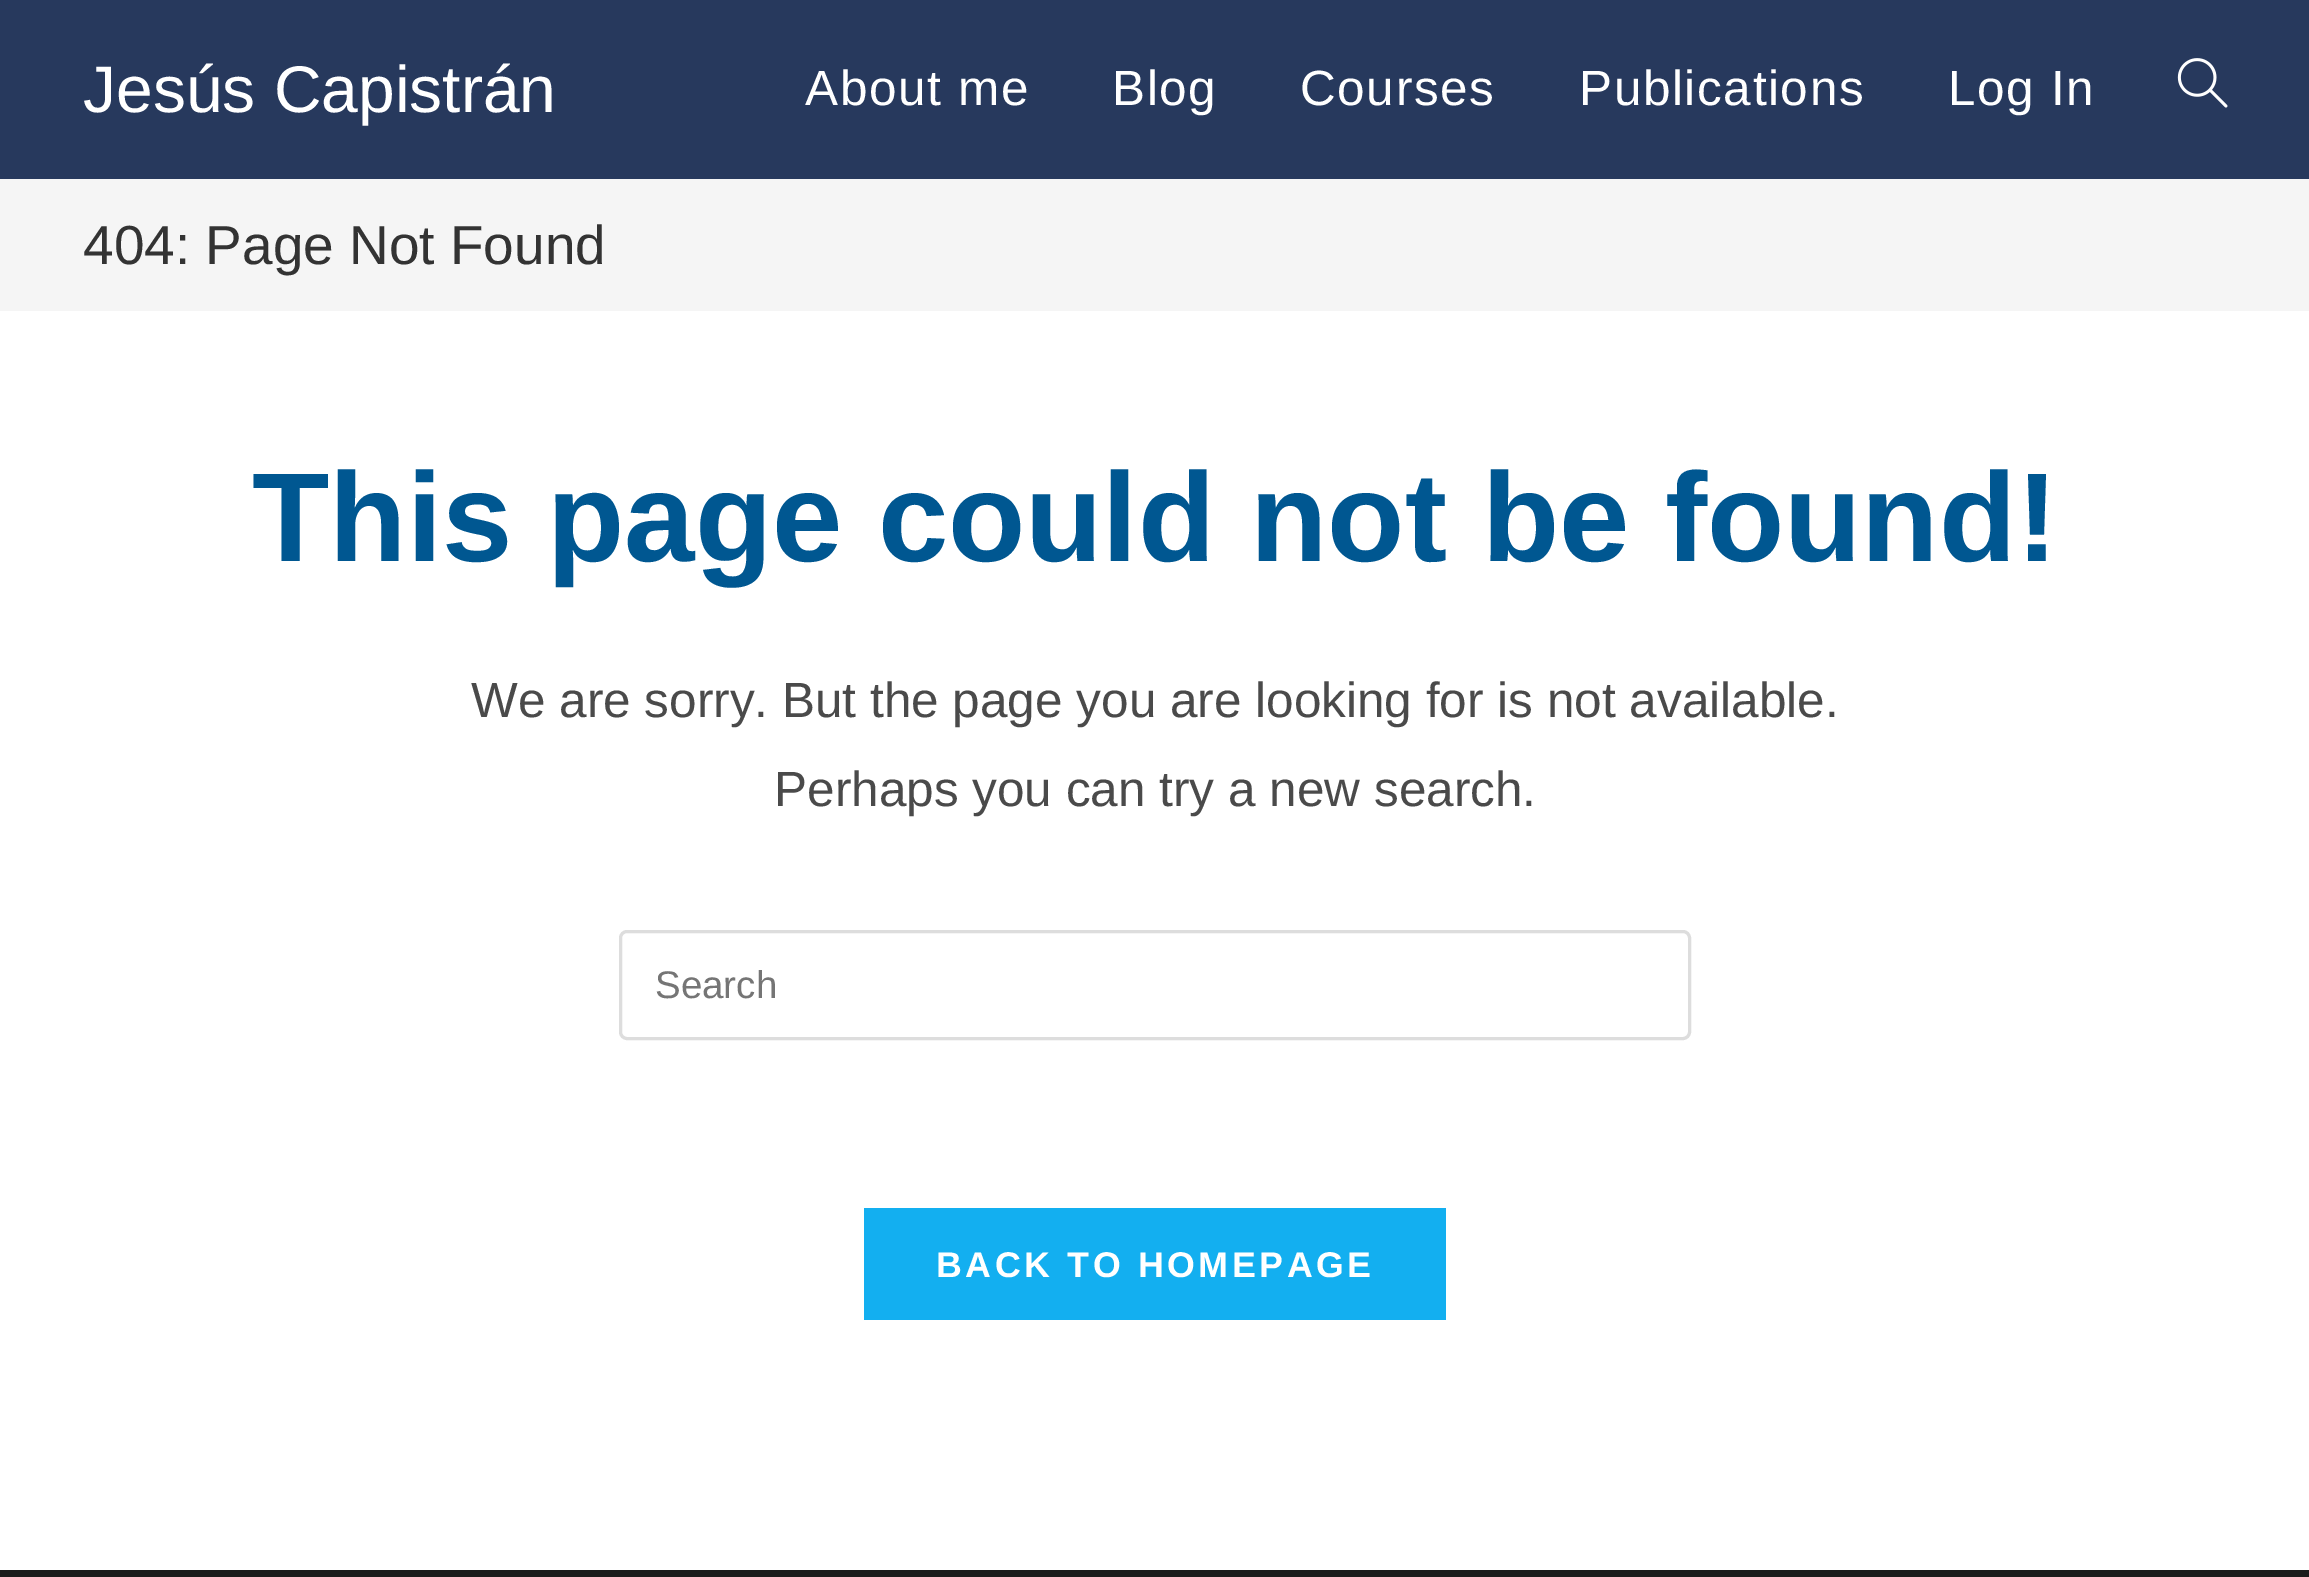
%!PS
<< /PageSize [2309 1577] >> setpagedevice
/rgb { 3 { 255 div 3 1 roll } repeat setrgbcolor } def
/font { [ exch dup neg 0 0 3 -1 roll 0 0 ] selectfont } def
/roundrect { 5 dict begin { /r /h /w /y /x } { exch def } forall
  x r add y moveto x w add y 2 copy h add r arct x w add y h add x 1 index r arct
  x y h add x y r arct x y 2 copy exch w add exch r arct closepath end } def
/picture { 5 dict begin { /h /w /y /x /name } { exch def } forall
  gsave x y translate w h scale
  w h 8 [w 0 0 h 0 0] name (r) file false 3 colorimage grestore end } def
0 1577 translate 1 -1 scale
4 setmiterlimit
255 255 255 rgb
0 0 2309 1577 rectfill
39 57 93 rgb
0 0 2309 179 rectfill
(img/1.rgb) 2177 58 51 50 picture
245 245 245 rgb
0 179 2309 132 rectfill
221 221 221 rgb
3 setlinewidth
620.5 931.5 1069 107 6.5 roundrect stroke
19 175 240 rgb
864 1208 582 112 rectfill
27 27 27 rgb
0 1570 2309 7 rectfill
/LiberationSans-Regular 66 font
255 255 255 rgb
83 112 moveto (Jesús Capistrán) show
/LiberationSans-Regular 49.5 font
805 105 moveto 1.6 0 (About me) ashow
1112 105 moveto 1.6 0 (Blog) ashow
1300 105 moveto 1.6 0 (Courses) ashow
1579 105 moveto 1.6 0 (Publications) ashow
1948 105 moveto 1.6 0 (Log In) ashow
/LiberationSans-Regular 55 font
51 51 51 rgb
83 264 moveto (404: Page Not Found) show
/LiberationSans-Bold 126.5 font
0 87 145 rgb
252 561 moveto (This page could not be found!) show
/LiberationSans-Regular 49.5 font
74 74 74 rgb
471 717 moveto (We are sorry. But the page you are looking for is not available.) show
774 806 moveto (Perhaps you can try a new search.) show
/LiberationSans-Regular 38.5 font
117 117 117 rgb
655 998 moveto (Search) show
/LiberationSans-Bold 35.75 font
255 255 255 rgb
936 1277 moveto 3.6 0 (BACK TO HOMEPAGE) ashow
showpage
